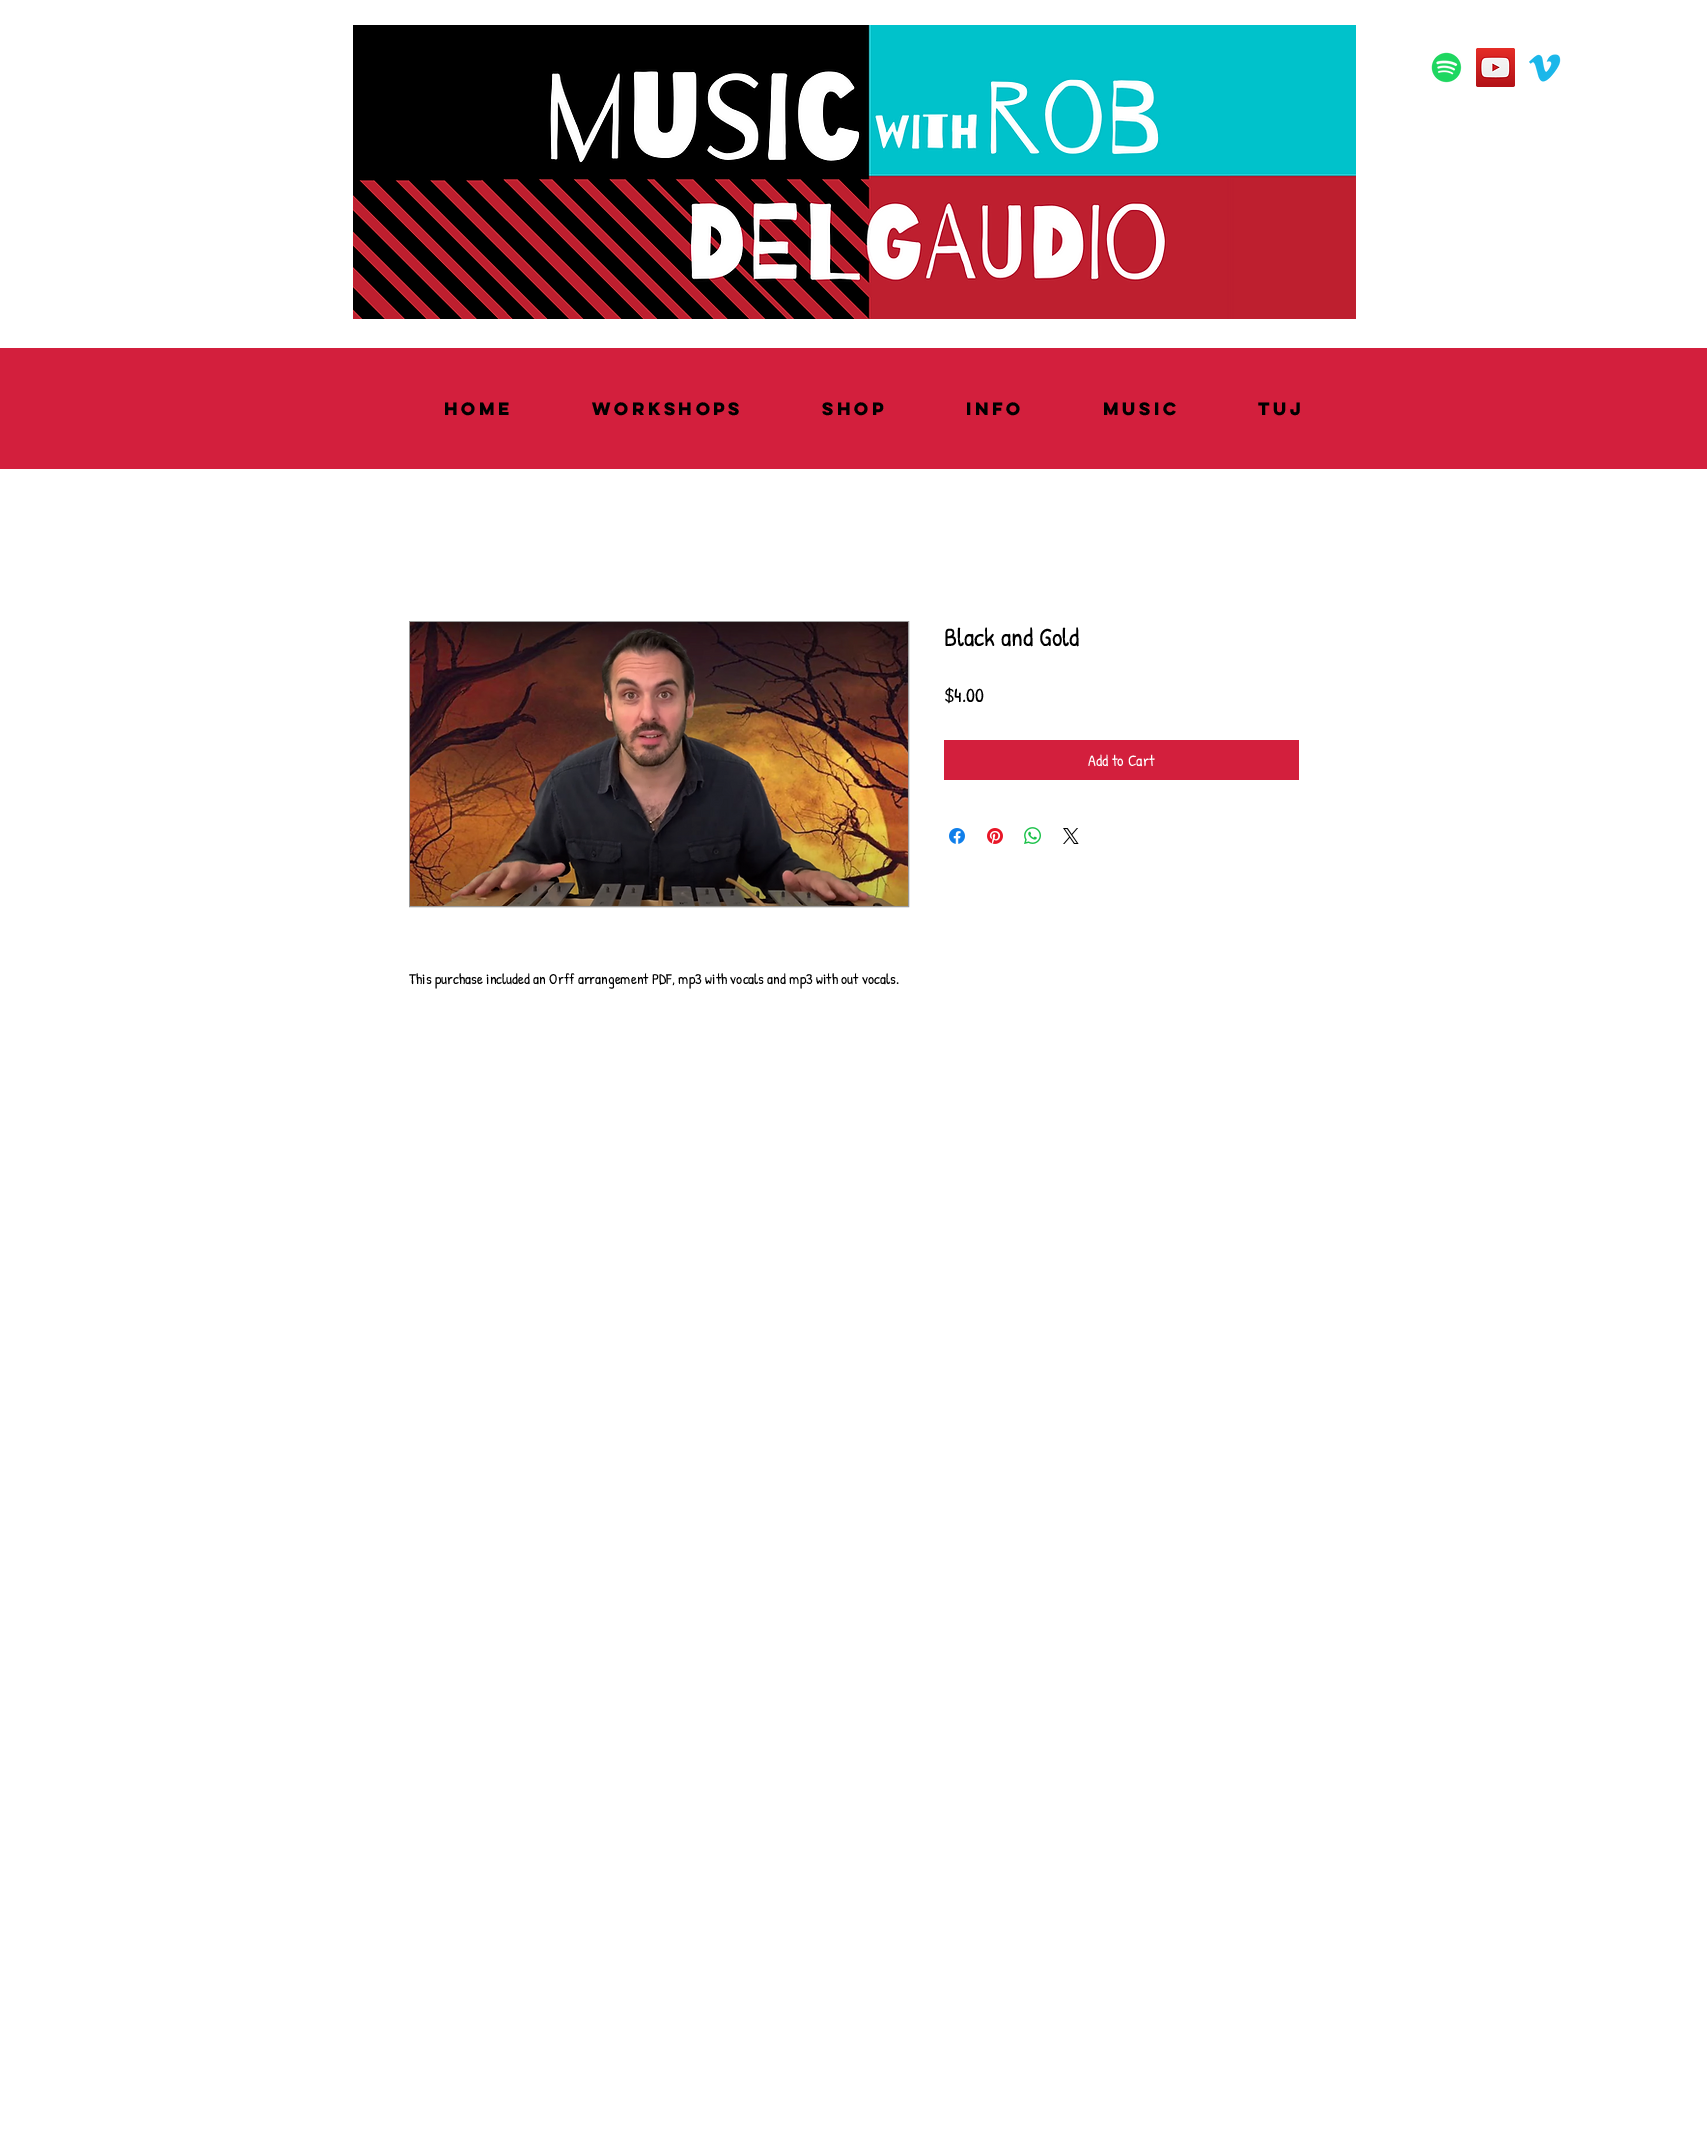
%!PS
<< /PageSize [1707 2129] >> setpagedevice
/rgb { 3 { 255 div 3 1 roll } repeat setrgbcolor } def
/font { [ exch dup neg 0 0 3 -1 roll 0 0 ] selectfont } def
/picture { 5 dict begin { /h /w /y /x /name } { exch def } forall
  gsave x y translate w h scale
  w h 8 [w 0 0 h 0 0] name (r) file false 3 colorimage grestore end } def
0 2129 translate 1 -1 scale
4 setmiterlimit
255 255 255 rgb
0 0 1707 2129 rectfill
(img/1.rgb) 353 25 1003 294 picture
(img/2.rgb) 1431 52 31 31 picture
(img/3.rgb) 1476 48 39 39 picture
(img/4.rgb) 1529 54 32 28 picture
211 31 61 rgb
0 348 1707 121 rectfill
944 740 355 40 rectfill
(img/5.rgb) 949 828 16 16 picture
(img/6.rgb) 987 828 16 16 picture
(img/7.rgb) 1024 827 17 17 picture
(img/8.rgb) 1063 828 16 16 picture
153 153 153 rgb
409.5 621.5 499 285 rectstroke
(img/9.rgb) 410 622 498 284 picture
/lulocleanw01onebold-Bold 16 font
0 0 0 rgb
[
  [(Home) 444 415]
  [(Workshops) 592 415]
  [(Shop) 822 415]
  [(Info) 966 415]
  [(Music) 1103 415]
  [(TUJ) 1258 415]
] { aload pop moveto show } forall
/PatrickHand-Regular 26 font
944 646 moveto (Black and Gold) show
/PatrickHand-Regular 20 font
944 702 moveto ($4.00) show
/PatrickHand-Regular 16 font
255 255 255 rgb
1088 766 moveto (Add to Cart) show
/PatrickHand-Regular 15 font
0 0 0 rgb
409 984 moveto (This purchase included an Orff arrangement PDF, mp3 with vocals and mp3 with out vocals.) show
showpage
